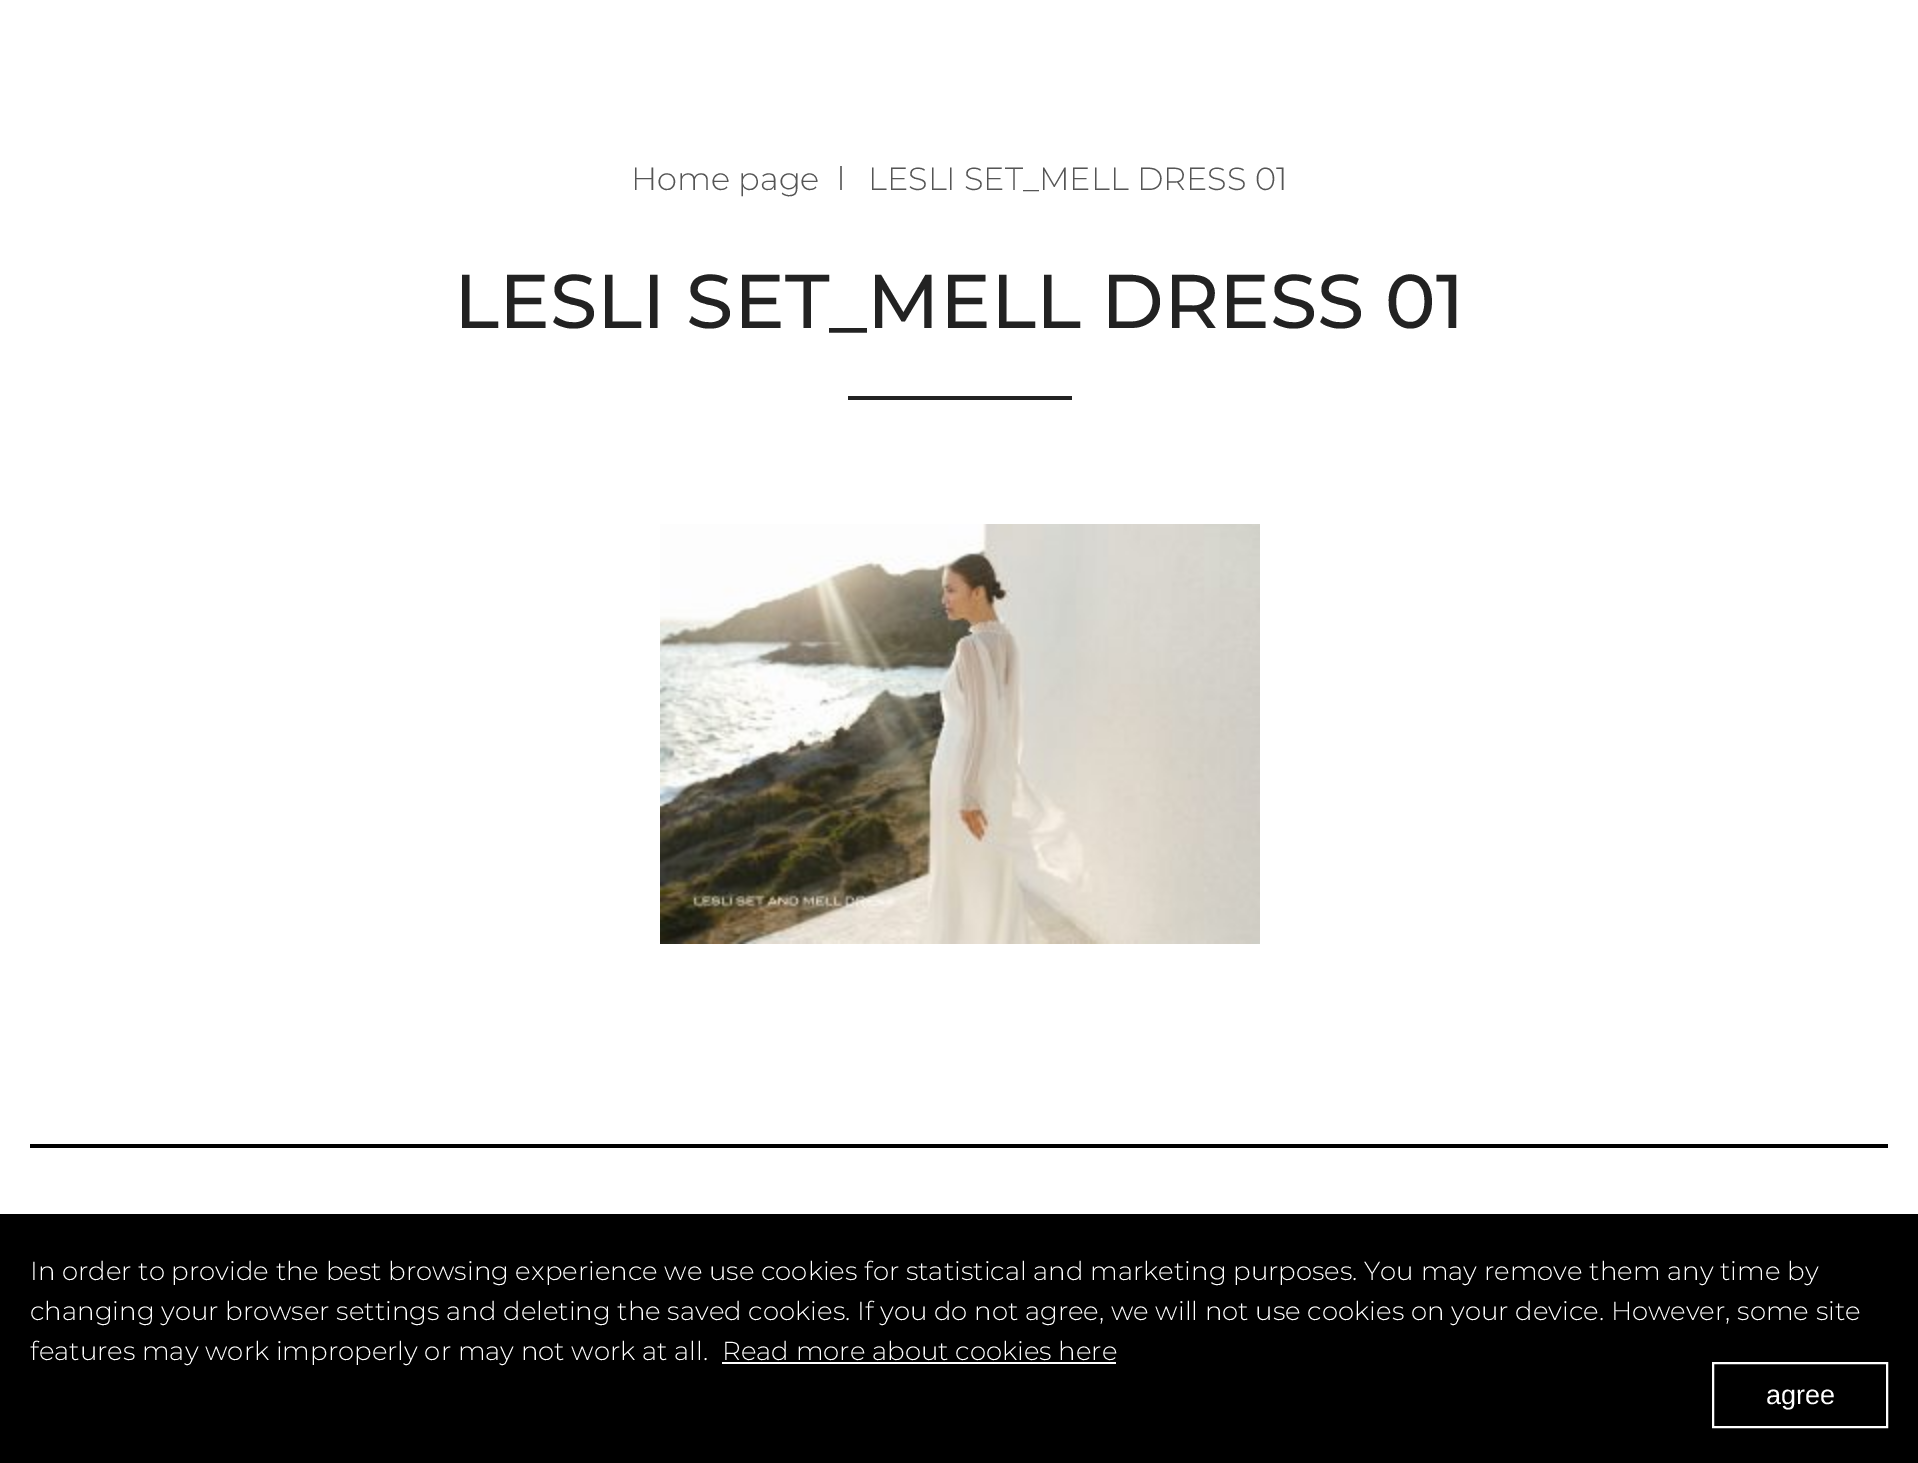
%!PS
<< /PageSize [1918 1463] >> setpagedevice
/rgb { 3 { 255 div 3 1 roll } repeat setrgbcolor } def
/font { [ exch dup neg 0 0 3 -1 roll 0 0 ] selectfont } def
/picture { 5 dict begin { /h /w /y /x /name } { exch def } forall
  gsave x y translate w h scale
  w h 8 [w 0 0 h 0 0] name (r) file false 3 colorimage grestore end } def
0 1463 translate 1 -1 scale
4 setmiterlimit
255 255 255 rgb
0 0 1918 1463 rectfill
116 116 116 rgb
840 166 2 24 rectfill
34 34 34 rgb
848 396 224 4 rectfill
(img/1.rgb) 660 524 600 420 picture
[
  [30 1144 1858 4 0 0 0]
  [0 1214 1918 249 0 0 0]
  [722 1362 394 2 255 255 255]
] { aload pop rgb rectfill } forall
2 setlinewidth
1713 1363 174 64 rectstroke
/Montserrat-Light 32 font
85 85 85 rgb
631 190 moveto (Home page) show
868 190 moveto (LESLI SET_MELL DRESS 01) show
/Montserrat-Medium 76 font
34 34 34 rgb
454 328 moveto (LESLI SET_MELL DRESS 01) show
/Montserrat-Light 26 font
255 255 255 rgb
[
  [(In order to provide the best browsing experience we use cookies for statistical and marketing purposes. You may remove them any time by) 30 1280]
  [(changing your browser settings and deleting the saved cookies. If you do not agree, we will not use cookies on your device. However, some site) 30 1320]
  [(features may work improperly or may not work at all.) 30 1360]
  [(Read more about cookies here) 722 1360]
] { aload pop moveto show } forall
/LiberationSans-Regular 27 font
1766 1404 moveto (agree) show
showpage
